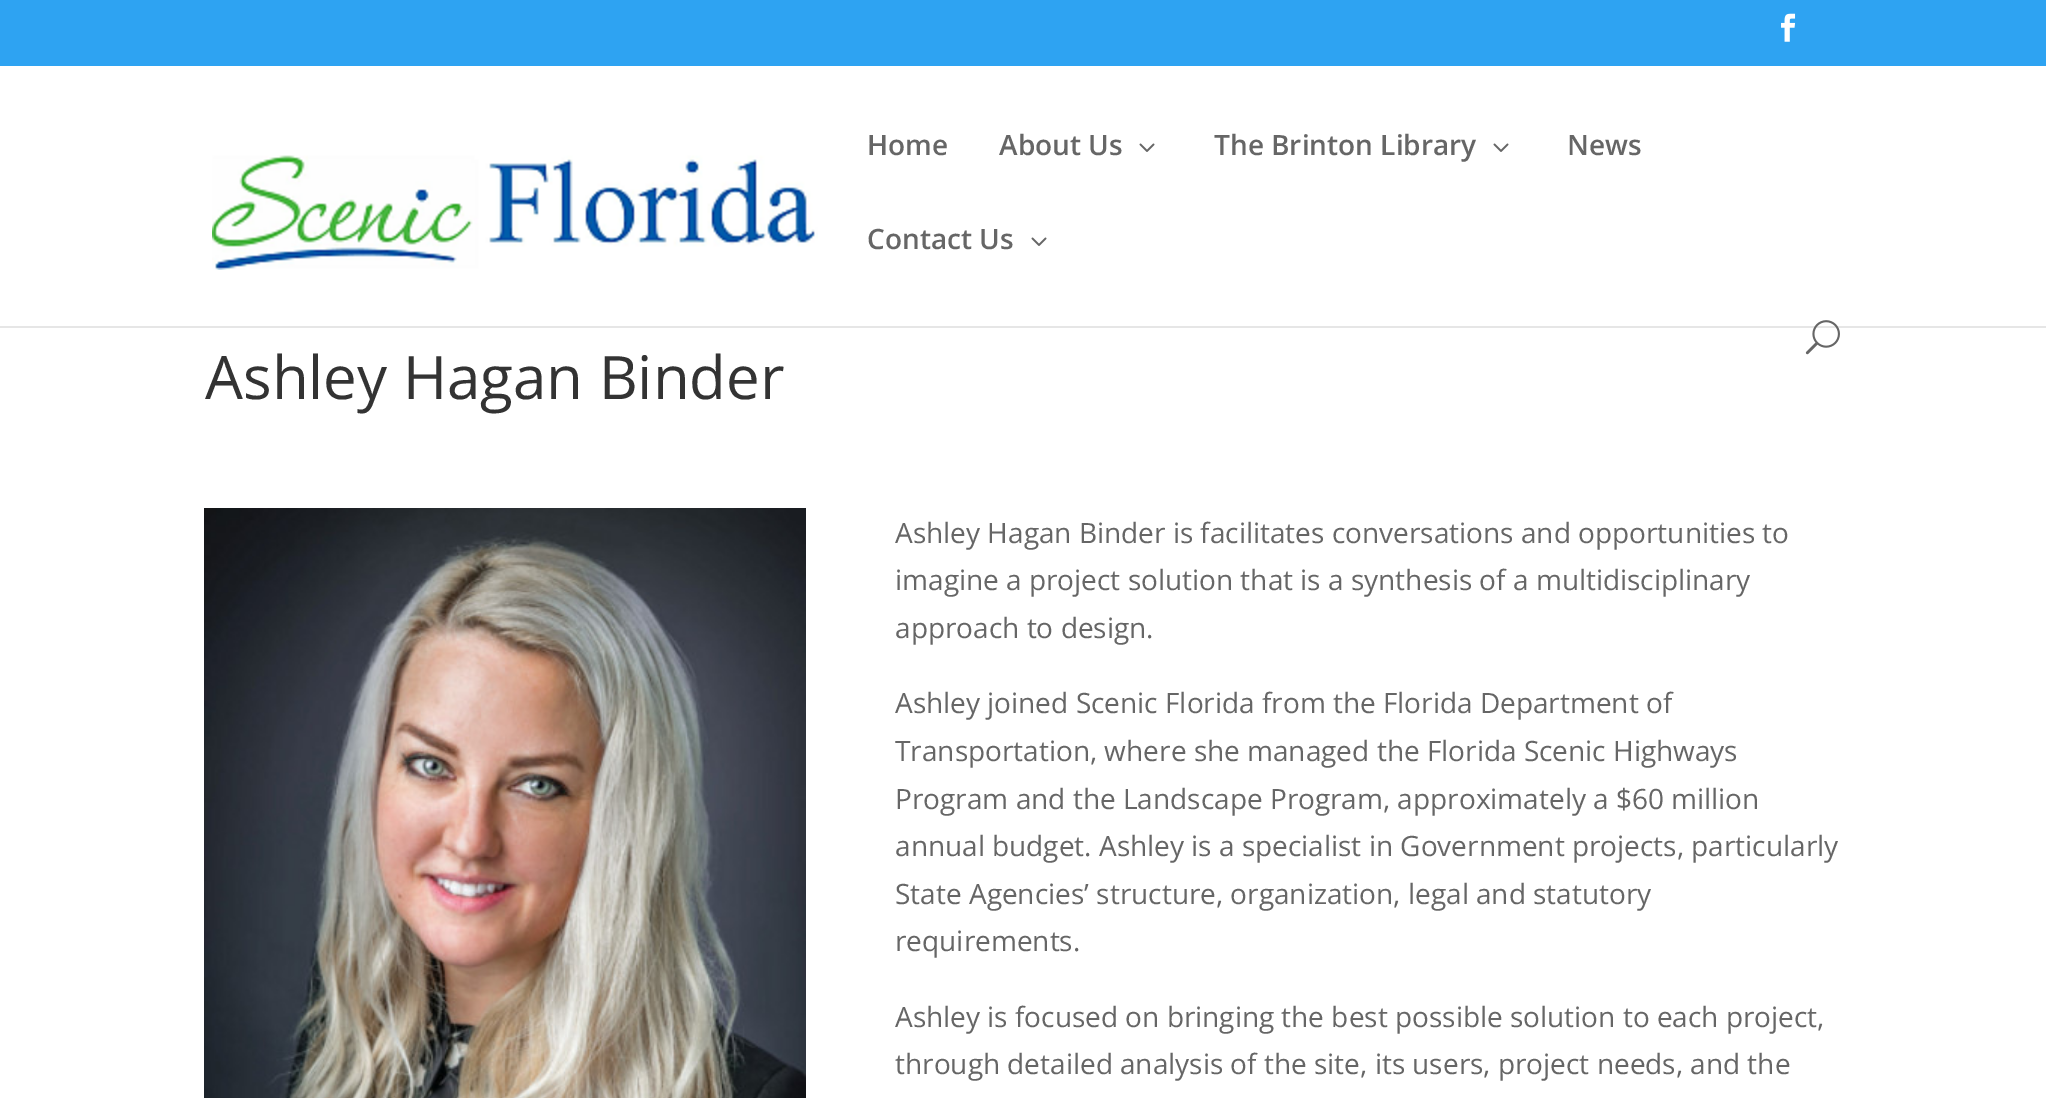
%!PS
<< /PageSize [2046 1098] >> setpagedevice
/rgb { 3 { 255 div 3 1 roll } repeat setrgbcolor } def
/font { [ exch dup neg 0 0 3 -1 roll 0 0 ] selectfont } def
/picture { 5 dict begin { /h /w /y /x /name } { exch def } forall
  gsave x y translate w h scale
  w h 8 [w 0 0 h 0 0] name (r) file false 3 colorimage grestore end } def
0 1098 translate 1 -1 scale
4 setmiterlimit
255 255 255 rgb
0 0 2046 1098 rectfill
46 163 242 rgb
0 0 2046 66 rectfill
(img/1.rgb) 1781 13 15 29 picture
230 230 230 rgb
0 326 2046 2 rectfill
(img/2.rgb) 212 155 606 115 picture
(img/3.rgb) 1139 143 16 9 picture
(img/3.rgb) 1493 143 16 9 picture
(img/3.rgb) 1031 237 16 9 picture
(img/4.rgb) 1805 320 35 35 picture
(img/5.rgb) 204 508 602 590 picture
/OpenSans-SemiBold 28 font
102 102 102 rgb
[
  [(Home) 867 155]
  [(About Us) 999 155]
  [(The Brinton Library) 1214 155]
  [(News) 1567 155]
  [(Contact Us) 867 249]
] { aload pop moveto show } forall
/OpenSans-Regular 60 font
51 51 51 rgb
205 399 moveto (Ashley Hagan Binder) show
/OpenSans-Regular 28 font
102 102 102 rgb
[
  [(Ashley Hagan Binder is facilitates conversations and opportunities to) 895 543]
  [(imagine a project solution that is a synthesis of a multidisciplinary) 895 590]
  [(approach to design.) 895 638]
  [(Ashley joined Scenic Florida from the Florida Department of) 895 713]
  [(Transportation, where she managed the Florida Scenic Highways) 895 761]
  [(Program and the Landscape Program, approximately a $60 million) 895 809]
  [(annual budget. Ashley is a specialist in Government projects, particularly) 895 856]
  [(State Agencies’ structure, organization, legal and statutory) 895 904]
  [(requirements.) 895 951]
  [(Ashley is focused on bringing the best possible solution to each project,) 895 1027]
  [(through detailed analysis of the site, its users, project needs, and the) 895 1074]
] { aload pop moveto show } forall
showpage
